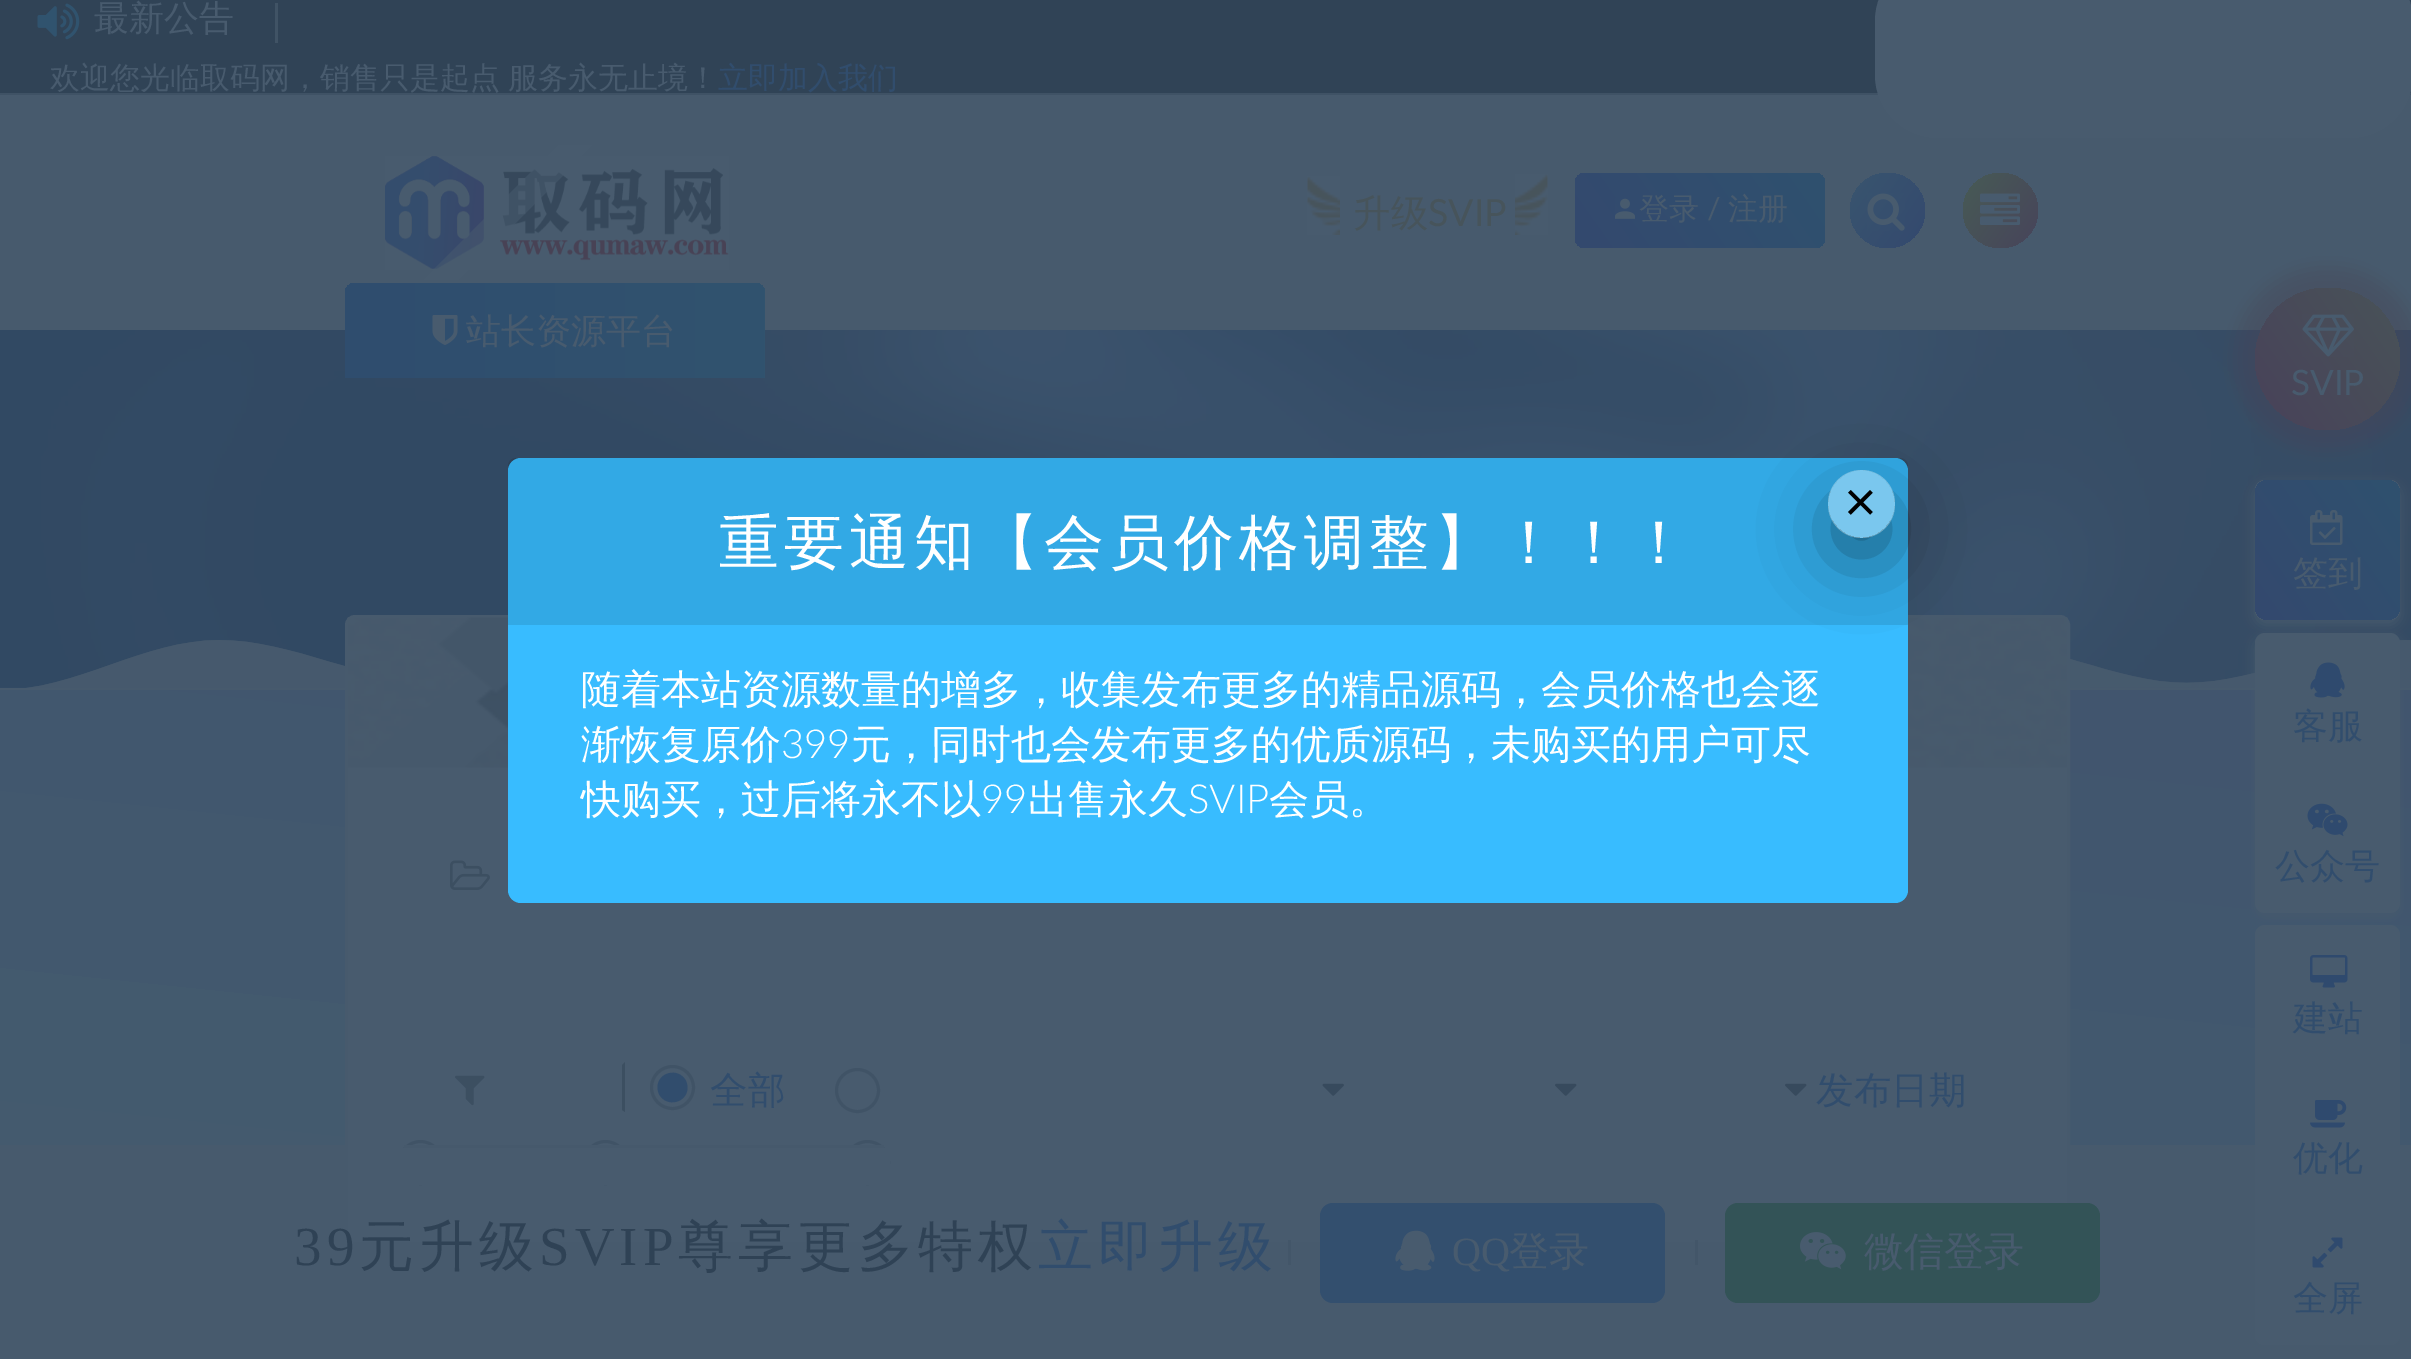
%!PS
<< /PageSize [2411 1359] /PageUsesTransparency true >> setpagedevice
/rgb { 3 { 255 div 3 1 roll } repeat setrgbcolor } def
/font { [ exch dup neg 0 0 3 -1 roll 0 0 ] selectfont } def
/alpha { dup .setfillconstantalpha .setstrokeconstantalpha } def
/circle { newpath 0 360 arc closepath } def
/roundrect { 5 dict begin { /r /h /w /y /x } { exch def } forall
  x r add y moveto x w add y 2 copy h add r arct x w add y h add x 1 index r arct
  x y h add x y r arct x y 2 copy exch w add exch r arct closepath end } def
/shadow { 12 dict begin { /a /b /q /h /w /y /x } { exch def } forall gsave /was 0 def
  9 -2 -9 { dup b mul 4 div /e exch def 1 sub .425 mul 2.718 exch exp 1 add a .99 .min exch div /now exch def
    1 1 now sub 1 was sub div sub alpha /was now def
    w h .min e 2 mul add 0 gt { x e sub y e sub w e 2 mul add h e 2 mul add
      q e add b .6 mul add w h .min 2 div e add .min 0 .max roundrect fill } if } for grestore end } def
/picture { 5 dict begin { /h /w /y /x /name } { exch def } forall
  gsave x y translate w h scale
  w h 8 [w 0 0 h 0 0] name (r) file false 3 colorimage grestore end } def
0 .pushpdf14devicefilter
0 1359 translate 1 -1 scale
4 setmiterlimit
71 90 109 rgb
0 0 2411 1359 rectfill
48 67 86 rgb
0 0 2411 93 rectfill
63 82 101 rgb
0 93 2411 2 rectfill
(img/1.rgb) 37 3 43 37 picture
64 83 101 rgb
275 3 3 40 rectfill
72 91 110 rgb
1875 -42 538 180 63 roundrect fill
(img/2.rgb) 385 156 344 114 picture
gsave
378 145 397 135 rectclip
0.5 alpha
422 281 moveto 687 16 lineto 705 33 lineto 440 299 lineto closepath fill
grestore
(img/3.rgb) 1307 176 33 59 picture
(img/4.rgb) 1515 174 33 61 picture
gsave 1575 173 250 75 10 roundrect clip newpath
<< /ShadingType 2 /ColorSpace /DeviceRGB /Coords [1801 139 1599 281] /Extend [true true] /Function << /FunctionType 2 /Domain [0 1] /C0 [0.184 0.318 0.431] /C1 [0.204 0.286 0.431] /N 1 >> >> shfill grestore
(img/5.rgb) 1615 198 20 21 picture
gsave 1887.5 210.5 37.5 circle clip newpath
<< /ShadingType 2 /ColorSpace /DeviceRGB /Coords [1845 180 1930 240] /Extend [true true] /Function << /FunctionType 2 /Domain [0 1] /C0 [0.224 0.333 0.431] /C1 [0.204 0.286 0.431] /N 1 >> >> shfill grestore
(img/6.rgb) 1867 193 38 38 picture
gsave 2000.5 210.5 37.5 circle clip newpath
<< /ShadingType 2 /ColorSpace /DeviceRGB /Coords [1957 180 2043 240] /Extend [true true] /Function << /FunctionType 2 /Domain [0 1] /C0 [0.278 0.357 0.333] /C1 [0.282 0.267 0.357] /N 1 >> >> shfill grestore
(img/7.rgb) 1980 193 40 32 picture
51 75 102 rgb
0 687 2411 1 rectfill
(img/9.rgb) 0 330 2411 358 picture
gsave 355 283 moveto 755 283 lineto 760.5 283 765 287.5 765 293 curveto 765 378 lineto 345 378 lineto 345 293 lineto 345 287.5 349.5 283 355 283 curveto closepath clip newpath
<< /ShadingType 2 /ColorSpace /DeviceRGB /Coords [345 330 765 330] /Extend [true true] /Function << /FunctionType 2 /Domain [0 1] /C0 [0.184 0.302 0.431] /C1 [0.192 0.325 0.431] /N 1 >> >> shfill grestore
(img/8.rgb) 432 315 26 30 picture
72 67 85 rgb
2235 268 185 182 91 10 0.42 shadow
gsave 2255 288 145 142 71 roundrect clip newpath
<< /ShadingType 2 /ColorSpace /DeviceRGB /Coords [2410 301 2245 416] /Extend [true true] /Function << /FunctionType 2 /Domain [0 1] /C0 [0.282 0.325 0.345] /C1 [0.282 0.259 0.353] /N 1 >> >> shfill grestore
(img/10.rgb) 2302 314 52 43 picture
(img/17.rgb) 26 640 2385 48 picture
(img/18.rgb) 26 640 2385 48 picture
(img/19.rgb) 26 640 2385 48 picture
70 89 108 rgb
2255 485 145 140 10 6 1 shadow
72 91 110 rgb
2255 480 145 140 10 roundrect fill
gsave 2255 480 145 140 13 roundrect clip newpath
<< /ShadingType 2 /ColorSpace /DeviceRGB /Coords [2409 493 2246 607] /Extend [true true] /Function << /FunctionType 2 /Domain [0 1] /C0 [0.184 0.318 0.431] /C1 [0.204 0.286 0.431] /N 1 >> >> shfill grestore
(img/11.rgb) 2310 510 33 35 picture
gsave 0 690 moveto 2411 690 lineto 2411 1145 lineto 0 1145 lineto closepath clip newpath
<< /ShadingType 2 /ColorSpace /DeviceRGB /Coords [1306 574 1107 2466] /Extend [true true] /Function << /FunctionType 3 /Domain [0 1] /Functions [<< /FunctionType 2 /Domain [0 1] /C0 [0.255 0.333 0.431] /C1 [0.263 0.353 0.431] /N 1 >> << /FunctionType 2 /Domain [0 1] /C0 [0.263 0.353 0.431] /C1 [0.282 0.353 0.427] /N 1 >> << /FunctionType 2 /Domain [0 1] /C0 [0.282 0.353 0.427] /C1 [0.282 0.353 0.427] /N 1 >>] /Bounds [0.32 0.47] /Encode [0 1 0 1 0 1] >> >> shfill grestore
70 89 108 rgb
2255 638 145 280 10 6 1 shadow
72 91 110 rgb
2255 633 145 280 10 roundrect fill
(img/12.rgb) 2310 662 35 36 picture
(img/13.rgb) 2307 803 41 34 picture
2255 925 145 420 10 roundrect fill
(img/14.rgb) 2310 955 38 33 picture
(img/15.rgb) 2310 1100 37 28 picture
(img/16.rgb) 2312 1237 31 31 picture
346.5 616.5 1722 627 8.5 roundrect gsave fill grestore
71 90 109 rgb
3 setlinewidth
stroke
(img/20.rgb) 347 617 1721 151 picture
(img/21.rgb) 450 860 40 30 picture
60 79 97 rgb
625 1062 moveto 625 1112 lineto 622 1110 lineto 622 1065 lineto closepath fill
(img/22.rgb) 455 1075 30 31 picture
64 83 102 rgb
672.5 1087.5 21 circle stroke
49 77 109 rgb
685.5 1080 moveto 687 1082.5 687.5 1085.5 687.5 1088.5 curveto 686.5 1103 667 1107.5 659.5 1095 curveto 658 1092.5 657.5 1089.5 657.5 1086.5 curveto 658.5 1072 678 1067.5 685.5 1080 curveto closepath fill
64 83 102 rgb
857.5 1090.5 21 circle stroke
420.5 1162.5 21 circle stroke
605.5 1162.5 21 circle stroke
867.5 1162.5 21 circle stroke
(img/23.rgb) 1322 1083 22 13 picture
(img/24.rgb) 1555 1083 22 13 picture
(img/24.rgb) 1785 1083 22 13 picture
[
  [398 1148 492 37 72 91 110]
  [404 1145 480 3 70 89 108]
  [1288 1240 3 25 67 86 105]
] { aload pop rgb rectfill } forall
51 79 110 rgb
1320 1203 345 100 13 roundrect fill
(img/25.rgb) 1395 1230 40 41 picture
67 86 105 rgb
1695 1240 3 25 rectfill
51 83 87 rgb
1725 1203 375 100 13 roundrect fill
(img/26.rgb) 1800 1232 46 38 picture
56 188 255 rgb
508 458 1400 445 13 roundrect fill
0.1 alpha
0 0 0 rgb
516 458 moveto 1900 458 lineto 1904.5 458 1908 461.5 1908 466 curveto 1908 625 lineto 508 625 lineto 508 466 lineto 508 461.5 511.5 458 516 458 curveto closepath fill
gsave
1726 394 moveto 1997 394 lineto 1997 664 lineto 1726 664 lineto closepath 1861.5 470 moveto 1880 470 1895 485 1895 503.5 curveto 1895 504.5 lineto 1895 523 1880 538 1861.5 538 curveto 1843 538 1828 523 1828 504.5 curveto 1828 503.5 lineto 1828 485 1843 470 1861.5 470 curveto closepath eoclip newpath
1 alpha
1840 508 43 42 21 37.5 0.5 shadow
grestore
0.35 alpha
255 255 255 rgb
1828 470 67 68 33.5 roundrect fill
/WenQuanYiZenHei-Medium 35 font
1 alpha
72 91 110 rgb
94 30 moveto (最新公告) show
/WenQuanYiZenHei-Medium 30 font
50 88 moveto -1 0 32 (欢迎您光临取码网，销售只是起点 服务永无止境！) widthshow
49 77 109 rgb
718 88 moveto (立即加入我们) show
/WenQuanYiZenHei-Medium 37.5 font
71 84 91 rgb
1353 226 moveto (升级) show
/Lato-Regular 37.5 font
1428 226 moveto (SVIP) show
/WenQuanYiZenHei-Medium 30 font
72 91 110 rgb
1639 219 moveto (登录) show
/Lato-Regular 30 font
1707 219 moveto (/) show
/WenQuanYiZenHei-Medium 30 font
1728 219 moveto (注册) show
/WenQuanYiZenHei-Medium 35 font
466 343 moveto (站长资源平台) show
/Lato-Regular 35 font
2291 395 moveto (SVIP) show
/WenQuanYiZenHei-Medium 35 font
2293 585 moveto (签到) show
49 77 109 rgb
[
  [(客服) 2293 738]
  [(公众号) 2275 878]
  [(建站) 2293 1030]
  [(优化) 2293 1170]
  [(全屏) 2293 1310]
] { aload pop moveto show } forall
/WenQuanYiZenHei-Medium 37.5 font
710 1103 moveto (全部) show
1816 1103 moveto (发布日期) show
/LiberationSerif-Regular 55 font
47 66 85 rgb
294 1265 moveto 5 0 (39) ashow
/WenQuanYiZenHei-Medium 55 font
359 1265 moveto 5 0 (元升级) ashow
/LiberationSerif-Regular 55 font
539 1265 moveto 5 0 (SVIP) ashow
/WenQuanYiZenHei-Medium 55 font
678 1265 moveto 5 0 (尊享更多特权) ashow
49 77 109 rgb
1038 1265 moveto 5 0 (立即升级) ashow
/LiberationSerif-Regular 40 font
72 91 110 rgb
1452 1265 moveto (QQ) show
/WenQuanYiZenHei-Medium 40 font
1509 1265 moveto (登录) show
1864 1265 moveto (微信登录) show
/LiberationSans-Regular 56 font
0 0 0 rgb
1844 521 moveto (×) show
/WenQuanYiZenHei-Medium 60 font
255 255 255 rgb
719 563 moveto 5 0 (重要通知【会员价格调整】！！！) ashow
/WenQuanYiZenHei-Medium 40 font
581 703 moveto (随着本站资源数量的增多，收集发布更多的精品源码，会员价格也会逐) show
581 758 moveto (渐恢复原价) show
/Lato-Light 40 font
781 758 moveto (399) show
/WenQuanYiZenHei-Medium 40 font
851 758 moveto (元，同时也会发布更多的优质源码，未购买的用户可尽) show
581 813 moveto (快购买，过后将永不以) show
/Lato-Light 40 font
981 813 moveto (99) show
/WenQuanYiZenHei-Medium 40 font
1028 813 moveto (出售永久) show
/Lato-Light 40 font
1188 813 moveto (SVIP) show
/WenQuanYiZenHei-Medium 40 font
1269 813 moveto (会员。) show
.poppdf14devicefilter showpage
